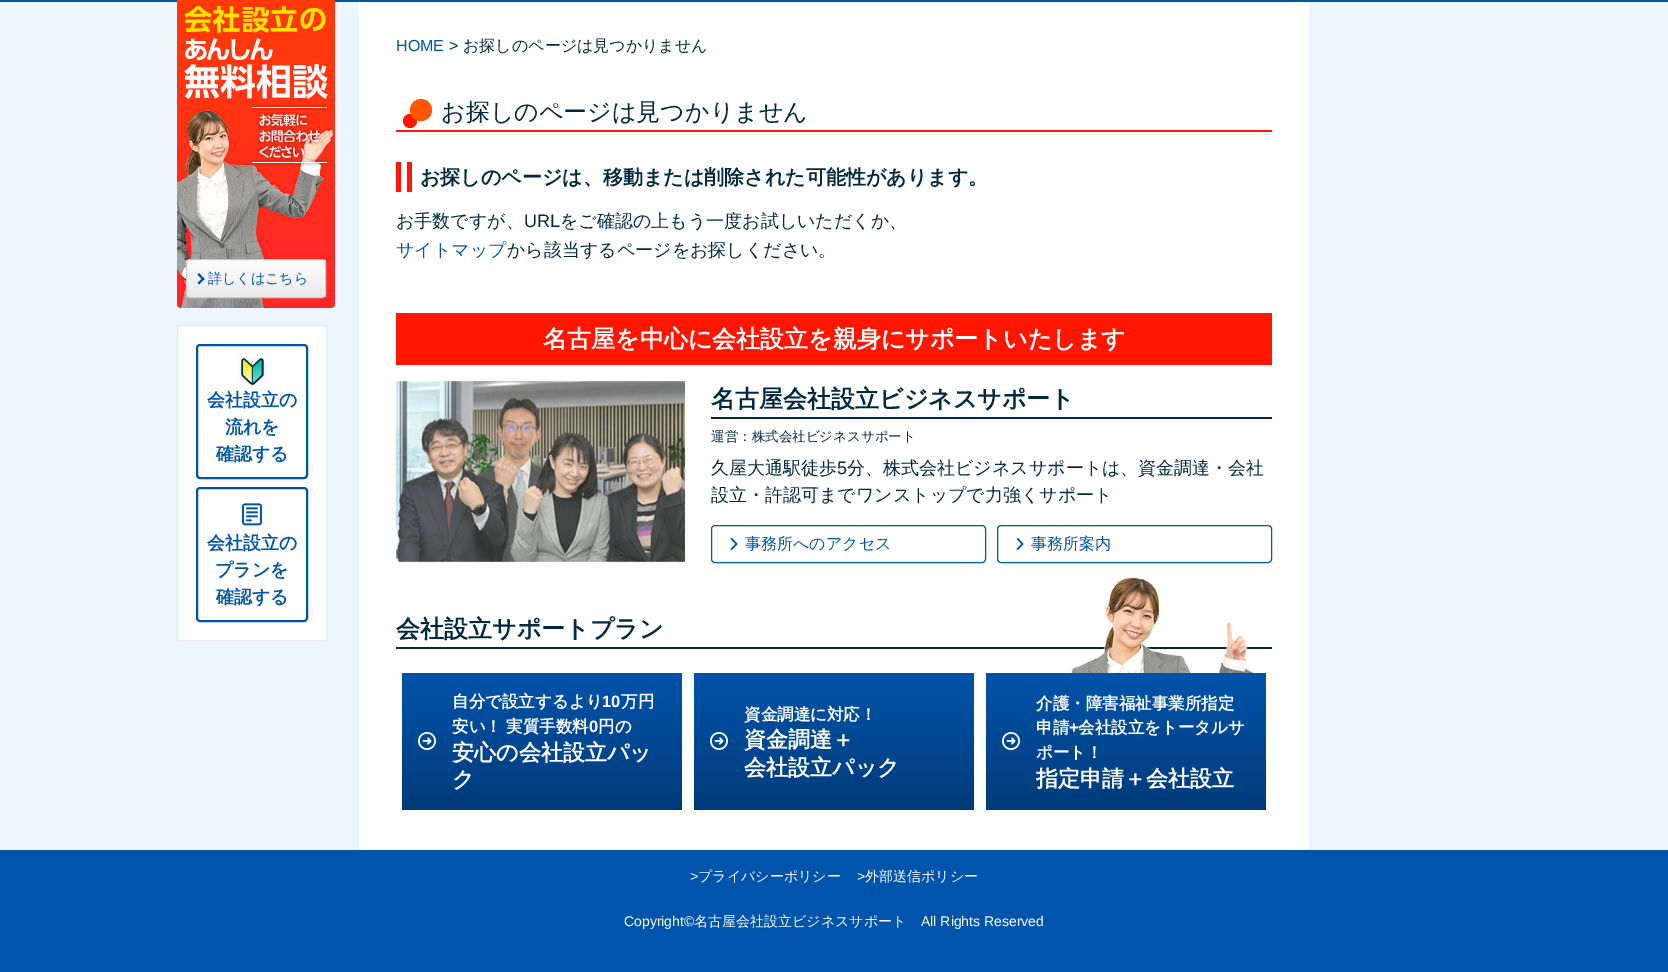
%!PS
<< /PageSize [1668 972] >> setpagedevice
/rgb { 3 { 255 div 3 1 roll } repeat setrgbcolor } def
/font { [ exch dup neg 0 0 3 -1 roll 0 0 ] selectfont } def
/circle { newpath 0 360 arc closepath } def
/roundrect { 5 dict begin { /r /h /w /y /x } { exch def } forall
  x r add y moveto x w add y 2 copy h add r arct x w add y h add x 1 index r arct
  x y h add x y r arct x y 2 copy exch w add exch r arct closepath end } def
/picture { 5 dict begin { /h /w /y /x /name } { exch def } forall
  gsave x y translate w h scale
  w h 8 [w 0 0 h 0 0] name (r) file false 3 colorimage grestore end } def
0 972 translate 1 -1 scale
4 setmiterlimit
236 246 255 rgb
0 0 1668 972 rectfill
[
  [0 0 1668 2 0 84 172]
  [359 2 950 848 255 255 255]
  [396 130 876 2 255 21 0]
] { aload pop rgb rectfill } forall
410 121 7 circle fill
255 87 0 rgb
421 110 11 circle fill
255 21 0 rgb
396 162 5 30 rectfill
407 162 5 30 rectfill
(img/1.rgb) 177 0 158 308 picture
gsave
186 259 140 39 4 roundrect clip newpath
gsave 186 260 moveto 326 260 lineto 326 297 lineto 186 297 lineto closepath clip newpath
<< /ShadingType 2 /ColorSpace /DeviceRGB /Coords [256 260 256 297] /Extend [true true] /Function << /FunctionType 2 /Domain [0 1] /C0 [1 1 1] /C1 [0.914 0.914 0.914] /N 1 >> >> shfill grestore
grestore
204 204 204 rgb
186.5 259.5 139 38 3.5 roundrect stroke
0 84 172 rgb
199 273 moveto 204.5 279 lineto 203 280.5 lineto 197.5 274.5 lineto closepath fill
203 277.5 moveto 204.5 279 lineto 199 284.5 lineto 197.5 283 lineto closepath fill
255 255 255 rgb
177.5 325.5 moveto 326.5 325.5 lineto 326.5 640.5 lineto 177.5 640.5 lineto closepath gsave fill grestore
236 236 236 rgb
stroke
0 84 172 rgb
2 setlinewidth
197 345 110 133 3 roundrect stroke
(img/2.rgb) 237 356 31 31 picture
197 488 110 133 3 roundrect stroke
(img/3.rgb) 242 503 20 23 picture
255 21 0 rgb
396 313 876 52 rectfill
(img/4.rgb) 396 380 289 182 picture
0 41 65 rgb
711 417 561 2 rectfill
0 84 172 rgb
1 setlinewidth
711.5 525.5 274 37 3.5 roundrect stroke
(img/5.rgb) 730 538 8 12 picture
997.5 525.5 274 37 3.5 roundrect stroke
(img/5.rgb) 1016 538 8 12 picture
0 41 65 rgb
396 647 876 2 rectfill
(img/6.rgb) 1069 577 186 96 picture
gsave 402 673 280 137 2 roundrect clip newpath
<< /ShadingType 2 /ColorSpace /DeviceRGB /Coords [542 673 542 810] /Extend [true true] /Function << /FunctionType 2 /Domain [0 1] /C0 [0 0.329 0.675] /C1 [0 0.231 0.475] /N 1 >> >> shfill grestore
(img/7.rgb) 418 732 18 18 picture
gsave 694 673 280 137 2 roundrect clip newpath
<< /ShadingType 2 /ColorSpace /DeviceRGB /Coords [834 673 834 810] /Extend [true true] /Function << /FunctionType 2 /Domain [0 1] /C0 [0 0.329 0.675] /C1 [0 0.231 0.475] /N 1 >> >> shfill grestore
(img/7.rgb) 710 732 18 18 picture
gsave 986 673 280 137 2 roundrect clip newpath
<< /ShadingType 2 /ColorSpace /DeviceRGB /Coords [1126 673 1126 810] /Extend [true true] /Function << /FunctionType 2 /Domain [0 1] /C0 [0 0.329 0.675] /C1 [0 0.231 0.475] /N 1 >> >> shfill grestore
(img/7.rgb) 1002 732 18 18 picture
0 84 172 rgb
0 850 1668 122 rectfill
/LiberationSans-Regular 16 font
396 51 moveto (HOME) show
0 41 65 rgb
449 51 moveto (>) show
/WenQuanYiZenHei-Medium 16 font
463 51 moveto (お探しのページは見つかりません) show
/WenQuanYiZenHei-Medium 24 font
441 120 moveto (お探しのページは見つかりません) show
/WenQuanYiZenHei-Bold 20 font
420 184 moveto (お探しのページは、移動または削除された可能性があります。) show
/WenQuanYiZenHei-Medium 18 font
396 227 moveto (お手数ですが、) show
/LiberationSans-Regular 18 font
524 227 moveto (URL) show
/WenQuanYiZenHei-Medium 18 font
560 227 moveto (をご確認の上もう一度お試しいただくか、) show
0 84 172 rgb
396 256 moveto (サイトマップ) show
0 41 65 rgb
507 256 moveto (から該当するページをお探しください。) show
/WenQuanYiZenHei-Medium 14 font
0 84 172 rgb
208 283 moveto (詳しくはこちら) show
/WenQuanYiZenHei-Bold 18 font
[
  [(会社設立の) 207 406]
  [(流れを) 225 433]
  [(確認する) 216 460]
  [(会社設立の) 207 549]
  [(プランを) 215 576]
  [(確認する) 216 603]
] { aload pop moveto show } forall
/WenQuanYiZenHei-Bold 24 font
255 255 255 rgb
543 347 moveto (名古屋を中心に会社設立を親身にサポートいたします) show
0 41 65 rgb
711 407 moveto (名古屋会社設立ビジネスサポート) show
/WenQuanYiZenHei-Medium 13.5 font
711 441 moveto (運営：株式会社ビジネスサポート) show
/WenQuanYiZenHei-Medium 18 font
711 474 moveto (久屋大通駅徒歩) show
/LiberationSans-Regular 18 font
837 474 moveto (5) show
/WenQuanYiZenHei-Medium 18 font
847 474 moveto (分、株式会社ビジネスサポートは、資金調達・会社) show
711 501 moveto (設立・許認可までワンストップで力強くサポート) show
/WenQuanYiZenHei-Medium 16 font
0 84 172 rgb
745 549 moveto (事務所へのアクセス) show
1031 549 moveto (事務所案内) show
/WenQuanYiZenHei-Bold 24 font
0 41 65 rgb
396 637 moveto (会社設立サポートプラン) show
/WenQuanYiZenHei-Bold 16.5 font
255 255 255 rgb
452 707 moveto (自分で設立するより) show
/LiberationSans-Bold 16.5 font
602 707 moveto (10) show
/WenQuanYiZenHei-Bold 16.5 font
[
  [(万円) 621 707]
  [(安い！) 452 732]
  [(実質手数料) 506 732]
] { aload pop moveto show } forall
/LiberationSans-Bold 16.5 font
589 732 moveto (0) show
/WenQuanYiZenHei-Bold 16.5 font
598 732 moveto (円の) show
/WenQuanYiZenHei-Bold 22 font
452 760 moveto (安心の会社設立パッ) show
452 787 moveto (ク) show
/WenQuanYiZenHei-Bold 16.5 font
744 720 moveto (資金調達に対応！) show
/WenQuanYiZenHei-Bold 22 font
744 747 moveto (資金調達＋) show
744 775 moveto (会社設立パック) show
/WenQuanYiZenHei-Bold 16.5 font
1036 709 moveto (介護・障害福祉事業所指定) show
1036 733 moveto (申請) show
/LiberationSans-Bold 16.5 font
1069 733 moveto (+) show
/WenQuanYiZenHei-Bold 16.5 font
1078 733 moveto (会社設立をトータルサ) show
1036 758 moveto (ポート！) show
/WenQuanYiZenHei-Bold 22 font
1036 786 moveto (指定申請＋会社設立) show
/LiberationSans-Regular 14 font
690 881 moveto (>) show
/WenQuanYiZenHei-Medium 14 font
698 881 moveto (プライバシーポリシー) show
/LiberationSans-Regular 14 font
857 881 moveto (>) show
/WenQuanYiZenHei-Medium 14 font
865 881 moveto (外部送信ポリシー) show
/LiberationSans-Regular 14 font
624 926 moveto (Copyright©) show
/WenQuanYiZenHei-Medium 14 font
694 926 moveto (名古屋会社設立ビジネスサポート) show
/LiberationSans-Regular 14 font
921 926 moveto (All Rights Reserved) show
showpage
